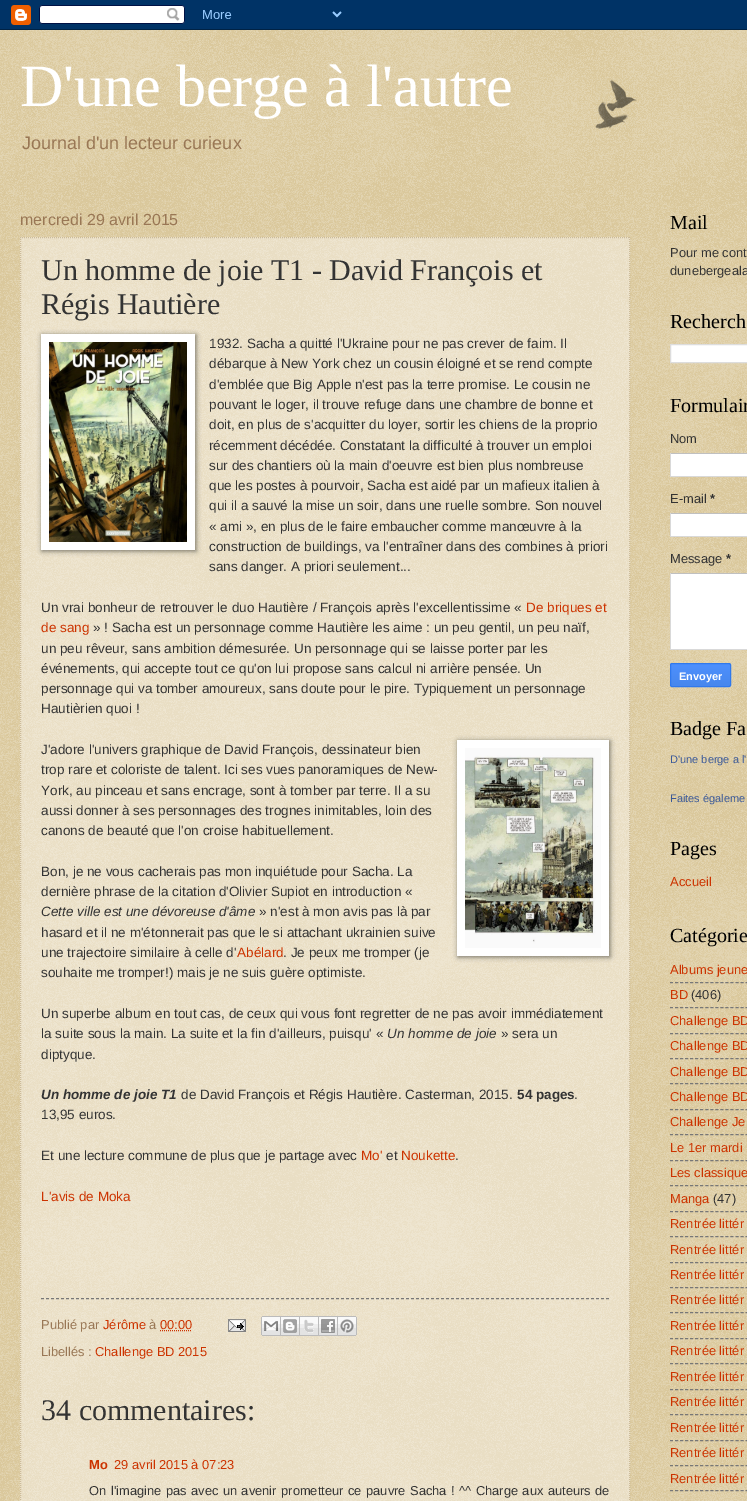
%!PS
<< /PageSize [747 1501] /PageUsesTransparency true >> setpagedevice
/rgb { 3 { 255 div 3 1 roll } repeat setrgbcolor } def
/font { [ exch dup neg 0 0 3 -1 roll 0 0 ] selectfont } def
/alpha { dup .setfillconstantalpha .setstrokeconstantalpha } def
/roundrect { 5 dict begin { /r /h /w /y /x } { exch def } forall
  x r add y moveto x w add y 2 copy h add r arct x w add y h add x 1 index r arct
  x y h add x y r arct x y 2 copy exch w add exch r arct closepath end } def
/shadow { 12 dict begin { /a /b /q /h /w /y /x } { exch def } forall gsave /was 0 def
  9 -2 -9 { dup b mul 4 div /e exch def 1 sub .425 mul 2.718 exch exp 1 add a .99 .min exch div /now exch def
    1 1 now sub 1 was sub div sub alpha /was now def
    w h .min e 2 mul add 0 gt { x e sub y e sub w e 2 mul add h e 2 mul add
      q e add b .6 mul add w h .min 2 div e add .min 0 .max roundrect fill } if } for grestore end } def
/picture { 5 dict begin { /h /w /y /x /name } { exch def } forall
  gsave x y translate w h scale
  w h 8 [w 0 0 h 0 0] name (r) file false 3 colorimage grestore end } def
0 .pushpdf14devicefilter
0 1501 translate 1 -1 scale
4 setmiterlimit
192 161 84 rgb
0 0 747 1501 rectfill
(img/1.rgb) 0 30 747 1471 picture
(img/2.rgb) 0 0 747 30 picture
0.4 alpha
255 255 255 rgb
20 237 610 1264 rectfill
1 alpha
204 187 153 rgb
[1 1] 0 setdash
20 237.5 moveto 630 237.5 lineto stroke
629.5 237 moveto 629.5 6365 lineto stroke
20.5 237 moveto 20.5 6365 lineto stroke
0 0 0 rgb
42 335 154 216 0 2.5 0.5 shadow
255 255 255 rgb
41 334 154 216 rectfill
(img/3.rgb) 49 342 138 200 picture
0 0 0 rgb
458 741 152 216 0 2.5 0.5 shadow
255 255 255 rgb
457 740 152 216 rectfill
(img/4.rgb) 465 748 136 200 picture
119 119 119 rgb
[3 2] 0 setdash
41 1298.5 moveto 609 1298.5 lineto stroke
204 51 0 rgb
[1 1] 0 setdash
160 1330.5 moveto 192 1330.5 lineto stroke
(img/5.rgb) 228 1319 18 13 picture
(img/6.rgb) 261 1316 20 20 picture
(img/7.rgb) 281 1316 19 20 picture
(img/8.rgb) 300 1316 19 20 picture
(img/9.rgb) 319 1316 19 20 picture
(img/10.rgb) 338 1316 19 20 picture
255 255 255 rgb
670.5 344.5 moveto 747.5 344.5 lineto 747.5 362.5 lineto 670.5 362.5 lineto closepath gsave fill grestore
221 221 221 rgb
[] 0 setdash
stroke
[
  [671 454 76 22 255 255 255]
  [670 453 77 1 192 192 192]
  [670 476 77 1 217 217 217]
  [670 453 1 24 217 217 217]
  [671 514 76 22 255 255 255]
  [670 513 77 1 192 192 192]
  [670 536 77 1 217 217 217]
  [670 513 1 24 217 217 217]
  [671 574 76 75 255 255 255]
  [670 573 77 1 192 192 192]
  [670 649 77 1 217 217 217]
  [670 573 1 77 217 217 217]
] { aload pop rgb rectfill } forall
gsave
670 663 61 24 2 roundrect clip newpath
gsave 670 664 moveto 731 664 lineto 731 686 lineto 670 686 lineto closepath clip newpath
<< /ShadingType 2 /ColorSpace /DeviceRGB /Coords [701 664 701 686] /Extend [true true] /Function << /FunctionType 2 /Domain [0 1] /C0 [0.302 0.565 0.996] /C1 [0.278 0.529 0.929] /N 1 >> >> shfill grestore
grestore
48 121 237 rgb
670.5 663.5 60 23 1.5 roundrect stroke
119 119 119 rgb
[3 2.04] 0 setdash
670 982.5 moveto 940 982.5 lineto stroke
670 1007.5 moveto 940 1007.5 lineto stroke
670 1033.5 moveto 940 1033.5 lineto stroke
670 1058.5 moveto 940 1058.5 lineto stroke
670 1083.5 moveto 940 1083.5 lineto stroke
670 1109.5 moveto 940 1109.5 lineto stroke
670 1134.5 moveto 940 1134.5 lineto stroke
670 1160.5 moveto 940 1160.5 lineto stroke
670 1185.5 moveto 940 1185.5 lineto stroke
670 1211.5 moveto 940 1211.5 lineto stroke
670 1236.5 moveto 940 1236.5 lineto stroke
670 1262.5 moveto 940 1262.5 lineto stroke
670 1287.5 moveto 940 1287.5 lineto stroke
670 1312.5 moveto 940 1312.5 lineto stroke
670 1338.5 moveto 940 1338.5 lineto stroke
670 1363.5 moveto 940 1363.5 lineto stroke
670 1389.5 moveto 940 1389.5 lineto stroke
670 1414.5 moveto 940 1414.5 lineto stroke
670 1440.5 moveto 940 1440.5 lineto stroke
670 1465.5 moveto 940 1465.5 lineto stroke
670 1490.5 moveto 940 1490.5 lineto stroke
(img/11.rgb) 595 79 42 50 picture
/LiberationSerif-Regular 60 font
255 255 255 rgb
20 106 moveto (D'une berge à l'autre) show
/LiberationSans-Regular 18 font
153 119 85 rgb
22 149 moveto (Journal d'un lecteur curieux) show
/LiberationSans-Regular 16 font
20 225 moveto (mercredi 29 avril 2015) show
/LiberationSerif-Regular 30 font
51 51 51 rgb
41 280 moveto (Un homme de joie T1 - David François et) show
41 314 moveto (Régis Hautière) show
/LiberationSans-Regular 13.5 font
[
  [(1932. Sacha a quitté l'Ukraine pour ne pas crever de faim. Il) 209 348]
  [(débarque à New York chez un cousin éloigné et se rend compte) 209 368]
  [(d'emblée que Big Apple n'est pas la terre promise. Le cousin ne) 209 389]
  [(pouvant le loger, il trouve refuge dans une chambre de bonne et) 209 409]
  [(doit, en plus de s'acquitter du loyer, sortir les chiens de la proprio) 209 429]
  [(récemment décédée. Constatant la difficulté à trouver un emploi) 209 450]
  [(sur des chantiers où la main d'oeuvre est bien plus nombreuse) 209 470]
  [(que les postes à pourvoir, Sacha est aidé par un mafieux italien à) 209 490]
  [(qui il a sauvé la mise un soir, dans une ruelle sombre. Son nouvel) 209 510]
  [(« ami », en plus de le faire embaucher comme manœuvre à la) 209 531]
  [(construction de buildings, va l'entraîner dans des combines à priori) 209 551]
  [(sans danger. A priori seulement...) 209 571]
  [(Un vrai bonheur de retrouver le duo Hautière / François après l'excellentissime «) 41 612]
] { aload pop moveto show } forall
204 51 0 rgb
526 612 moveto (De briques et) show
41 632 moveto (de sang) show
51 51 51 rgb
[
  [(» ! Sacha est un personnage comme Hautière les aime : un peu gentil, un peu naïf,) 93 632]
  [(un peu rêveur, sans ambition démesurée. Un personnage qui se laisse porter par les) 41 653]
  [(événements, qui accepte tout ce qu'on lui propose sans calcul ni arrière pensée. Un) 41 673]
  [(personnage qui va tomber amoureux, sans doute pour le pire. Typiquement un personnage) 41 693]
  [(Hautièrien quoi !) 41 713]
  [(J'adore l'univers graphique de David François, dessinateur bien) 41 754]
  [(trop rare et coloriste de talent. Ici ses vues panoramiques de New-) 41 774]
  [(York, au pinceau et sans encrage, sont à tomber par terre. Il a su) 41 795]
  [(aussi donner à ses personnages des trognes inimitables, loin des) 41 815]
  [(canons de beauté que l'on croise habituellement.) 41 835]
  [(Bon, je ne vous cacherais pas mon inquiétude pour Sacha. La) 41 876]
  [(dernière phrase de la citation d'Olivier Supiot en introduction «) 41 896]
] { aload pop moveto show } forall
/LiberationSans-Italic 13.5 font
41 916 moveto (Cette ville est une dévoreuse d'âme) show
/LiberationSans-Regular 13.5 font
[
  [(» n'est à mon avis pas là par) 259 916]
  [(hasard et il ne m'étonnerait pas que le si attachant ukrainien suive) 41 937]
  [(une trajectoire similaire à celle d') 41 957]
] { aload pop moveto show } forall
204 51 0 rgb
237 957 moveto (Abélard) show
51 51 51 rgb
[
  [(. Je peux me tromper \(je) 283 957]
  [(souhaite me tromper!\) mais je ne suis guère optimiste.) 41 977]
  [(Un superbe album en tout cas, de ceux qui vous font regretter de ne pas avoir immédiatement) 41 1018]
  [(la suite sous la main. La suite et la fin d'ailleurs, puisqu' «) 41 1038]
] { aload pop moveto show } forall
/LiberationSans-Italic 13.5 font
387 1038 moveto (Un homme de joie) show
/LiberationSans-Regular 13.5 font
501 1038 moveto (» sera un) show
41 1059 moveto (diptyque.) show
/LiberationSans-BoldItalic 13.5 font
41 1099 moveto (Un homme de joie T1) show
/LiberationSans-Regular 13.5 font
181 1099 moveto (de David François et Régis Hautière. Casterman, 2015.) show
/LiberationSans-Bold 13.5 font
517 1099 moveto (54 pages) show
/LiberationSans-Regular 13.5 font
[
  [(.) 574 1099]
  [(13,95 euros.) 41 1119]
  [(Et une lecture commune de plus que je partage avec) 41 1160]
] { aload pop moveto show } forall
204 51 0 rgb
361 1160 moveto (Mo') show
51 51 51 rgb
386 1160 moveto (et) show
204 51 0 rgb
401 1160 moveto (Noukette) show
51 51 51 rgb
455 1160 moveto (.) show
204 51 0 rgb
41 1201 moveto (L'avis de Moka) show
/LiberationSans-Regular 12.9 font
153 119 85 rgb
41 1329 moveto (Publié par) show
204 51 0 rgb
103 1329 moveto (Jérôme) show
153 119 85 rgb
149 1329 moveto (à) show
204 51 0 rgb
160 1329 moveto (00:00) show
153 119 85 rgb
41 1356 moveto (Libellés :) show
204 51 0 rgb
95 1356 moveto (Challenge BD 2015) show
/LiberationSerif-Regular 30 font
51 51 51 rgb
41 1420 moveto (34 commentaires:) show
/LiberationSans-Bold 12.9 font
204 51 0 rgb
89 1469 moveto (Mo) show
/LiberationSans-Regular 12.9 font
114 1469 moveto (29 avril 2015 à 07:23) show
51 51 51 rgb
89 1495 moveto 0.9 0 32 (On l'imagine pas avec un avenir prometteur ce pauvre Sacha ! ^^ Charge aux auteurs de) widthshow
/LiberationSerif-Regular 20 font
0 0 0 rgb
670 229 moveto (Mail) show
/LiberationSans-Regular 12.9 font
51 51 51 rgb
670 257 moveto (Pour me cont) show
670 275 moveto (dunebergeala) show
/LiberationSerif-Regular 20 font
0 0 0 rgb
670 328 moveto (Recherch) show
670 412 moveto (Formulair) show
/LiberationSans-Regular 12.9 font
51 51 51 rgb
670 443 moveto (Nom) show
670 503 moveto (E-mail) show
/LiberationSans-Bold 12.9 font
710 503 moveto (*) show
/LiberationSans-Regular 12.9 font
670 563 moveto (Message) show
/LiberationSans-Bold 12.9 font
726 563 moveto (*) show
/LiberationSans-Bold 11 font
255 255 255 rgb
679 680 moveto (Envoyer) show
/LiberationSerif-Regular 20 font
0 0 0 rgb
670 735 moveto (Badge Fa) show
/LiberationSans-Regular 11 font
59 89 152 rgb
670 763 moveto (D'une berge a l') show
670 802 moveto (Faites égaleme) show
/LiberationSerif-Regular 20 font
0 0 0 rgb
670 855 moveto (Pages) show
/LiberationSans-Regular 12.9 font
204 51 0 rgb
670 886 moveto (Accueil) show
/LiberationSerif-Regular 20 font
0 0 0 rgb
670 942 moveto (Catégorie) show
/LiberationSans-Regular 12.9 font
204 51 0 rgb
670 974 moveto (Albums jeune) show
670 999 moveto (BD) show
51 51 51 rgb
691 999 moveto (\(406\)) show
204 51 0 rgb
[
  [(Challenge BD) 670 1025]
  [(Challenge BD) 670 1050]
  [(Challenge BD) 670 1076]
  [(Challenge BD) 670 1101]
  [(Challenge Je) 670 1126]
  [(Le 1er mardi) 670 1152]
  [(Les classique) 670 1177]
  [(Manga) 670 1203]
] { aload pop moveto show } forall
51 51 51 rgb
713 1203 moveto (\(47\)) show
204 51 0 rgb
[
  [(Rentrée littér) 670 1228]
  [(Rentrée littér) 670 1254]
  [(Rentrée littér) 670 1279]
  [(Rentrée littér) 670 1304]
  [(Rentrée littér) 670 1330]
  [(Rentrée littér) 670 1355]
  [(Rentrée littér) 670 1381]
  [(Rentrée littér) 670 1406]
  [(Rentrée littér) 670 1432]
  [(Rentrée littér) 670 1457]
  [(Rentrée littér) 670 1483]
] { aload pop moveto show } forall
.poppdf14devicefilter showpage
